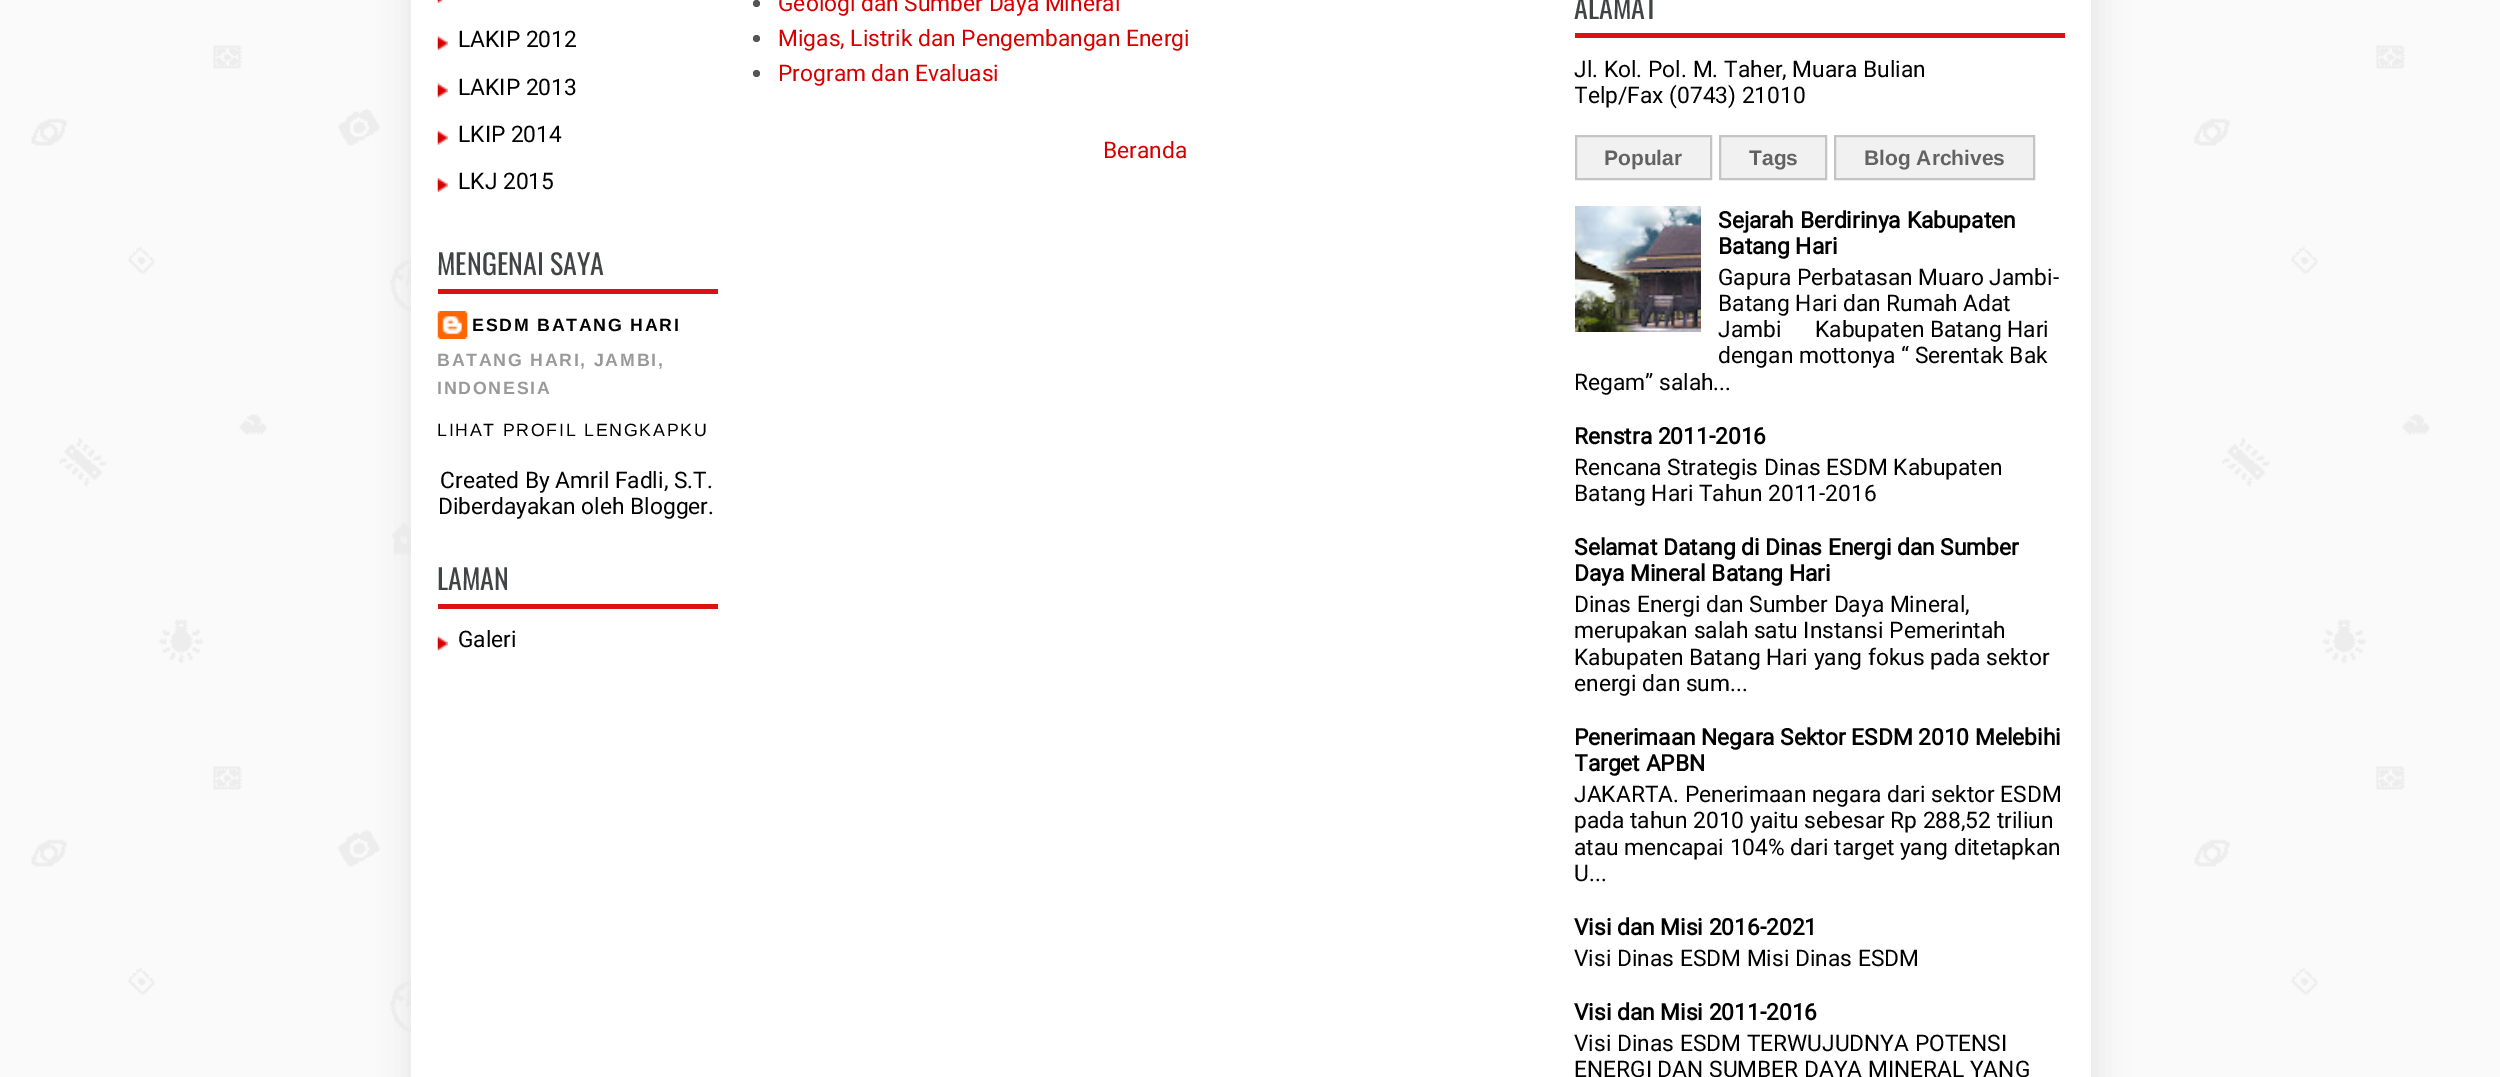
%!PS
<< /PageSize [2500 1077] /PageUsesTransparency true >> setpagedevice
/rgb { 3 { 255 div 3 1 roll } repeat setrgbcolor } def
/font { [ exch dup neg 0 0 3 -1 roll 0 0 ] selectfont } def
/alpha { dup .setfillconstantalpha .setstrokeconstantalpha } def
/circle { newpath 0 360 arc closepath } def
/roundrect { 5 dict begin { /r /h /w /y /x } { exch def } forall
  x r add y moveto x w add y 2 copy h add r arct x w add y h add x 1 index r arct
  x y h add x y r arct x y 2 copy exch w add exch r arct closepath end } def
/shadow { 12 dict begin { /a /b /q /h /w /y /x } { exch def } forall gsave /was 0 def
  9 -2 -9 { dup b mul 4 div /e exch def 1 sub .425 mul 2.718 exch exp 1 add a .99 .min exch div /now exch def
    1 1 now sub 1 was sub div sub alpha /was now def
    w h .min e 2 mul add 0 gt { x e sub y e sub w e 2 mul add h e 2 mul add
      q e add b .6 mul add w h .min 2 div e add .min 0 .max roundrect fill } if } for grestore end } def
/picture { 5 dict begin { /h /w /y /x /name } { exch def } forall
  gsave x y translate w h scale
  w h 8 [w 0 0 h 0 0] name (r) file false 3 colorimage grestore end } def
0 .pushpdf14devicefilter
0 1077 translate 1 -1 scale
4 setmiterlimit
255 255 255 rgb
0 0 2500 1077 rectfill
(img/1.rgb) 0 0 2500 1077 picture
233 233 233 rgb
404 -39 1698 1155 0 13 1 shadow
255 255 255 rgb
411 0 1680 1077 rectfill
(img/2.rgb) 437 0 7 3 picture
(img/3.rgb) 437 36 11 15 picture
(img/4.rgb) 437 83 11 15 picture
(img/5.rgb) 437 130 11 15 picture
(img/6.rgb) 437 178 11 14 picture
218 18 18 rgb
438 289 280 5 rectfill
(img/7.rgb) 437 311 31 28 picture
438 604 280 5 rectfill
(img/4.rgb) 437 636 11 15 picture
85 85 85 rgb
756.5 3.5 3.5 circle fill
756.5 38.5 3.5 circle fill
756.5 73.5 3.5 circle fill
218 18 18 rgb
1575 33 490 5 rectfill
241 241 241 rgb
1576 136 moveto 1711 136 lineto 1711 179 lineto 1576 179 lineto closepath gsave fill grestore
196 196 196 rgb
2 setlinewidth
stroke
241 241 241 rgb
1720 136 moveto 1826 136 lineto 1826 179 lineto 1720 179 lineto closepath gsave fill grestore
196 196 196 rgb
stroke
241 241 241 rgb
1835 136 moveto 2034 136 lineto 2034 179 lineto 1835 179 lineto closepath gsave fill grestore
196 196 196 rgb
stroke
(img/8.rgb) 1575 206 126 126 picture
/Roboto-Regular 22.75 font
0 0 0 rgb
[
  [(LAKIP 2012) 458 47]
  [(LAKIP 2013) 458 95]
  [(LKIP 2014) 458 142]
  [(LKJ 2015) 458 189]
] { aload pop moveto show } forall
/Oswald-Regular 28 font
65 68 69 rgb
437 275 moveto (MENGENAI SAYA) show
/LiberationSans-Bold 17.75 font
0 0 0 rgb
472 331 moveto 1.75 0 (ESDM BATANG HARI) ashow
gsave
438 0 280 690 rectclip
153 153 153 rgb
437 366 moveto 1.75 0 (BATANG HARI, JAMBI,) ashow
437 394 moveto 1.75 0 (INDONESIA) ashow
grestore
/LiberationSans-Regular 17.75 font
437 436 moveto 1.75 0 (LIHAT PROFIL LENGKAPKU) ashow
/Roboto-Regular 22.75 font
440 488 moveto (Created By Amril Fadli, S.T.) show
438 514 moveto (Diberdayakan oleh Blogger.) show
/Oswald-Regular 28 font
65 68 69 rgb
437 590 moveto (LAMAN) show
/Roboto-Regular 22.75 font
0 0 0 rgb
458 647 moveto (Galeri) show
215 0 0 rgb
[
  [(Geologi dan Sumber Daya Mineral) 778 11]
  [(Migas, Listrik dan Pengembangan Energi) 778 46]
  [(Program dan Evaluasi) 778 81]
  [(Beranda) 1103 158]
] { aload pop moveto show } forall
/Oswald-Regular 28 font
65 68 69 rgb
1574 19 moveto (ALAMAT) show
/Roboto-Regular 22.75 font
0 0 0 rgb
1574 77 moveto (Jl. Kol. Pol. M. Taher, Muara Bulian) show
gsave
1575 0 490 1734 rectclip
1574 103 moveto (Telp/Fax \(0743\) 21010) show
grestore
/LiberationSans-Bold 21 font
98 98 98 rgb
[
  [(Popular) 1604 165]
  [(Tags) 1749 165]
  [(Blog Archives) 1864 165]
] { aload pop moveto show } forall
/Roboto-Bold 22.75 font
0 0 0 rgb
1718 228 moveto (Sejarah Berdirinya Kabupaten) show
1718 254 moveto (Batang Hari) show
/Roboto-Regular 22.75 font
[
  [(Gapura Perbatasan Muaro Jambi-) 1718 285]
  [(Batang Hari dan Rumah Adat) 1718 311]
  [(Jambi) 1718 337]
  [(Kabupaten Batang Hari) 1815 337]
  [(dengan mottonya “ Serentak Bak) 1718 363]
  [(Regam” salah...) 1574 390]
] { aload pop moveto show } forall
/Roboto-Bold 22.75 font
1574 444 moveto (Renstra 2011-2016) show
/Roboto-Regular 22.75 font
1574 475 moveto (Rencana Strategis Dinas ESDM Kabupaten) show
1574 501 moveto (Batang Hari Tahun 2011-2016) show
/Roboto-Bold 22.75 font
1574 555 moveto (Selamat Datang di Dinas Energi dan Sumber) show
1574 581 moveto (Daya Mineral Batang Hari) show
/Roboto-Regular 22.75 font
[
  [(Dinas Energi dan Sumber Daya Mineral,) 1574 612]
  [(merupakan salah satu Instansi Pemerintah) 1574 638]
  [(Kabupaten Batang Hari yang fokus pada sektor) 1574 665]
  [(energi dan sum...) 1574 691]
] { aload pop moveto show } forall
/Roboto-Bold 22.75 font
1574 745 moveto (Penerimaan Negara Sektor ESDM 2010 Melebihi) show
gsave
1575 0 490 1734 rectclip
1574 771 moveto (Target APBN) show
grestore
/Roboto-Regular 22.75 font
[
  [(JAKARTA. Penerimaan negara dari sektor ESDM) 1574 802]
  [(pada tahun 2010 yaitu sebesar Rp 288,52 triliun) 1574 828]
  [(atau mencapai 104% dari target yang ditetapkan) 1574 855]
  [(U...) 1574 881]
] { aload pop moveto show } forall
/Roboto-Bold 22.75 font
1574 935 moveto (Visi dan Misi 2016-2021) show
/Roboto-Regular 22.75 font
1574 966 moveto (Visi Dinas ESDM Misi Dinas ESDM) show
/Roboto-Bold 22.75 font
1574 1020 moveto (Visi dan Misi 2011-2016) show
/Roboto-Regular 22.75 font
1574 1051 moveto (Visi Dinas ESDM TERWUJUDNYA POTENSI) show
1574 1077 moveto (ENERGI DAN SUMBER DAYA MINERAL YANG) show
.poppdf14devicefilter showpage
